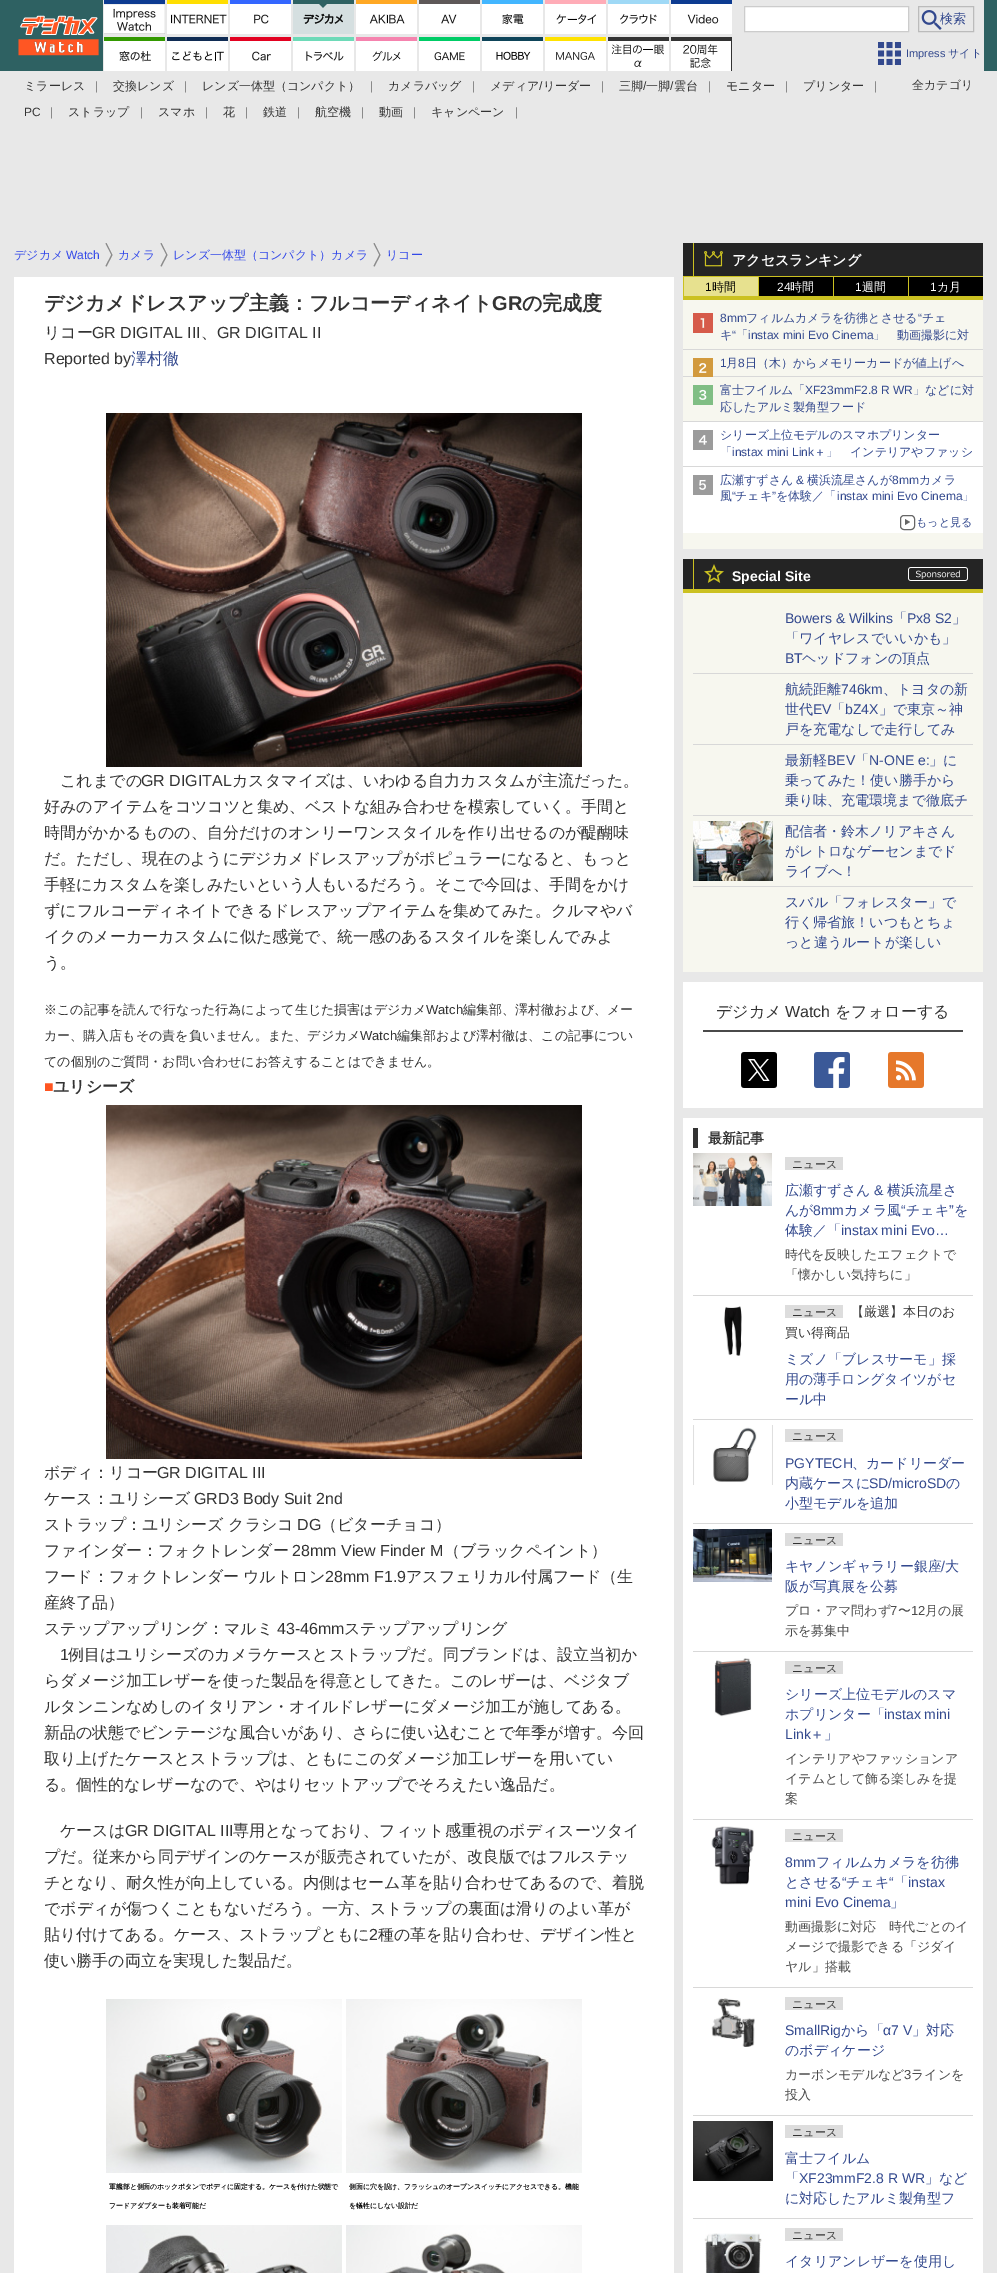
%!PS
<< /PageSize [997 2273] >> setpagedevice
/rgb { 3 { 255 div 3 1 roll } repeat setrgbcolor } def
/font { [ exch dup neg 0 0 3 -1 roll 0 0 ] selectfont } def
/roundrect { 5 dict begin { /r /h /w /y /x } { exch def } forall
  x r add y moveto x w add y 2 copy h add r arct x w add y h add x 1 index r arct
  x y h add x y r arct x y 2 copy exch w add exch r arct closepath end } def
/picture { 5 dict begin { /h /w /y /x /name } { exch def } forall
  gsave x y translate w h scale
  w h 8 [w 0 0 h 0 0] name (r) file false 3 colorimage grestore end } def
0 2273 translate 1 -1 scale
4 setmiterlimit
232 232 232 rgb
0 0 997 2273 rectfill
46 97 98 rgb
0 0 997 71 rectfill
(img/1.rgb) 18 15 81 41 picture
232 232 232 rgb
103 0 881 71 rectfill
13 59 145 rgb
104 0 61 4 rectfill
(img/2.rgb) 104 4 61 30 picture
255 222 0 rgb
167 0 61 4 rectfill
(img/3.rgb) 167 4 61 30 picture
51 102 255 rgb
230 0 61 4 rectfill
(img/4.rgb) 230 4 61 30 picture
46 97 98 rgb
293 0 61 34 rectfill
(img/5.rgb) 293 4 61 30 picture
255 168 36 rgb
356 0 61 4 rectfill
(img/6.rgb) 356 4 61 30 picture
94 88 88 rgb
419 0 61 4 rectfill
(img/7.rgb) 419 4 61 30 picture
66 182 255 rgb
482 0 61 4 rectfill
(img/8.rgb) 482 4 61 30 picture
255 172 183 rgb
545 0 61 4 rectfill
(img/9.rgb) 545 4 61 30 picture
159 217 246 rgb
608 0 61 4 rectfill
(img/10.rgb) 608 4 61 30 picture
13 59 145 rgb
671 0 61 4 rectfill
(img/11.rgb) 671 4 61 30 picture
255 255 255 rgb
744.5 6.5 moveto 908.5 6.5 lineto 908.5 31.5 lineto 744.5 31.5 lineto closepath gsave fill grestore
204 204 204 rgb
stroke
(img/12.rgb) 921 10 21 20 picture
187 187 187 rgb
918.5 6.5 55 25 rectstroke
51 153 0 rgb
104 37 61 4 rectfill
(img/13.rgb) 104 41 61 30 picture
16 44 84 rgb
167 37 61 4 rectfill
(img/14.rgb) 167 41 61 30 picture
227 1 33 rgb
230 37 61 4 rectfill
(img/15.rgb) 230 41 61 30 picture
110 218 184 rgb
293 37 61 4 rectfill
(img/16.rgb) 293 41 61 30 picture
245 131 174 rgb
356 37 61 4 rectfill
(img/17.rgb) 356 41 61 30 picture
0 204 102 rgb
419 37 61 4 rectfill
(img/18.rgb) 419 41 61 30 picture
14 68 89 rgb
482 37 61 4 rectfill
(img/19.rgb) 482 41 61 30 picture
255 226 0 rgb
545 37 61 4 rectfill
(img/20.rgb) 545 41 61 30 picture
51 51 51 rgb
608 37 61 4 rectfill
(img/21.rgb) 608 41 61 30 picture
671 37 61 34 rectfill
(img/22.rgb) 671 41 60 30 picture
(img/23.rgb) 878 42 23 23 picture
138 138 138 rgb
105.5 243.5 moveto 111.5 255 lineto 111.5 254.5 lineto 105.5 266 lineto 106.5 266.5 lineto 112.5 255 lineto 106.5 243 lineto closepath fill
160.5 243.5 moveto 166.5 255 lineto 166.5 254.5 lineto 160.5 266 lineto 161.5 266.5 lineto 167.5 255 lineto 161.5 243 lineto closepath fill
373.5 243.5 moveto 379.5 255 lineto 379.5 254.5 lineto 373.5 266 lineto 374.5 266.5 lineto 380.5 255 lineto 374.5 243 lineto closepath fill
255 255 255 rgb
14 277 660 1996 rectfill
(img/24.rgb) 106 413 476 354 picture
(img/25.rgb) 106 1105 476 354 picture
(img/26.rgb) 106 1999 236 174 picture
(img/27.rgb) 346 1999 236 174 picture
(img/28.rgb) 106 2225 236 48 picture
(img/29.rgb) 346 2225 236 48 picture
[
  [683 533 300 16 247 247 239]
  [683 243 300 33 36 36 36]
  [683 276 300 1 203 193 33]
  [693 243 1 34 203 193 33]
] { aload pop rgb rectfill } forall
(img/30.rgb) 704 251 19 16 picture
[
  [684 277 74 19 231 225 143]
  [683 296 300 4 203 193 33]
  [683 277 1 23 203 193 33]
  [759 277 74 19 0 0 0]
  [758 277 1 23 203 193 33]
  [834 277 74 19 0 0 0]
  [833 277 1 23 203 193 33]
  [909 277 74 19 0 0 0]
  [908 277 1 23 203 193 33]
  [683 300 300 5 247 247 239]
  [683 305 300 44 247 247 239]
  [683 349 300 1 216 216 216]
] { aload pop rgb rectfill } forall
(img/31.rgb) 693 313 20 20 picture
247 247 239 rgb
683 350 300 26 rectfill
216 216 216 rgb
683 376 300 1 rectfill
(img/32.rgb) 693 358 20 19 picture
247 247 239 rgb
683 377 300 44 rectfill
216 216 216 rgb
683 421 300 1 rectfill
(img/33.rgb) 693 385 20 20 picture
255 255 255 rgb
683 422 300 111 rectfill
216 216 216 rgb
683 466 300 1 rectfill
(img/34.rgb) 693 430 20 20 picture
(img/35.rgb) 693 475 20 20 picture
102 102 102 rgb
900.5 515.5 14 14 3.5 roundrect stroke
905 525 moveto 905 519 lineto 910 522 lineto closepath fill
[
  [683 593 300 379 247 247 239]
  [683 559 300 30 36 36 36]
  [683 589 300 4 203 193 33]
  [693 559 1 34 203 193 33]
] { aload pop rgb rectfill } forall
(img/36.rgb) 704 564 20 19 picture
(img/37.rgb) 908 567 60 14 picture
[
  [693 673 280 1 216 216 216]
  [693 744 280 1 216 216 216]
  [693 815 280 1 216 216 216]
  [693 886 280 1 216 216 216]
] { aload pop rgb rectfill } forall
(img/38.rgb) 693 821 80 60 picture
255 255 255 rgb
683 982 300 126 rectfill
74 74 74 rgb
703 1030 260 2 rectfill
(img/39.rgb) 741 1052 36 36 picture
(img/40.rgb) 814 1052 36 36 picture
(img/41.rgb) 888 1052 36 36 picture
[
  [683 1118 300 1155 255 255 255]
  [693 1128 5 20 51 51 51]
  [693 1295 280 1 216 216 216]
] { aload pop rgb rectfill } forall
(img/42.rgb) 693 1153 79 53 picture
221 221 221 rgb
785 1157 58 13 rectfill
216 216 216 rgb
693 1419 280 1 rectfill
(img/43.rgb) 724 1306 18 50 picture
221 221 221 rgb
785 1305 58 13 rectfill
216 216 216 rgb
693 1523 280 1 rectfill
(img/44.rgb) 693 1425 80 60 picture
221 221 221 rgb
785 1429 58 13 rectfill
216 216 216 rgb
693 1651 280 1 rectfill
(img/45.rgb) 693 1529 79 53 picture
221 221 221 rgb
785 1533 58 13 rectfill
216 216 216 rgb
693 1819 280 1 rectfill
(img/46.rgb) 714 1658 38 59 picture
221 221 221 rgb
785 1661 58 13 rectfill
216 216 216 rgb
693 1987 280 1 rectfill
(img/47.rgb) 711 1826 43 59 picture
221 221 221 rgb
785 1829 58 13 rectfill
216 216 216 rgb
693 2115 280 1 rectfill
(img/48.rgb) 711 1998 44 49 picture
221 221 221 rgb
785 1997 58 13 rectfill
216 216 216 rgb
693 2218 280 1 rectfill
(img/49.rgb) 693 2121 80 60 picture
221 221 221 rgb
785 2125 58 13 rectfill
(img/50.rgb) 704 2233 58 40 picture
785 2228 58 13 rectfill
/WenQuanYiZenHei-Medium 13 font
51 73 142 rgb
940 23 moveto (検索) show
/LiberationSans-Regular 11 font
906 57 moveto (Impress) show
/WenQuanYiZenHei-Medium 11 font
948 57 moveto (サイト) show
/WenQuanYiZenHei-Medium 12 font
51 51 51 rgb
24 90 moveto (ミラーレス) show
/LiberationSans-Regular 12 font
138 138 138 rgb
95 90 moveto (|) show
/WenQuanYiZenHei-Medium 12 font
51 51 51 rgb
113 90 moveto (交換レンズ) show
/LiberationSans-Regular 12 font
138 138 138 rgb
184 90 moveto (|) show
/WenQuanYiZenHei-Medium 12 font
51 51 51 rgb
202 90 moveto (レンズ一体型（コンパクト）) show
/LiberationSans-Regular 12 font
138 138 138 rgb
370 90 moveto (|) show
/WenQuanYiZenHei-Medium 12 font
51 51 51 rgb
388 90 moveto (カメラバッグ) show
/LiberationSans-Regular 12 font
138 138 138 rgb
472 90 moveto (|) show
/WenQuanYiZenHei-Medium 12 font
51 51 51 rgb
490 90 moveto (メディア リーダー) show
/LiberationSans-Regular 12 font
539 90 moveto (/) show
138 138 138 rgb
601 90 moveto (|) show
/WenQuanYiZenHei-Medium 12 font
51 51 51 rgb
619 90 moveto (三脚) show
/LiberationSans-Regular 12 font
643 90 moveto (/) show
/WenQuanYiZenHei-Medium 12 font
646 90 moveto (一脚 雲台) show
/LiberationSans-Regular 12 font
670 90 moveto (/) show
138 138 138 rgb
708 90 moveto (|) show
/WenQuanYiZenHei-Medium 12 font
51 51 51 rgb
726 90 moveto (モニター) show
/LiberationSans-Regular 12 font
138 138 138 rgb
785 90 moveto (|) show
/WenQuanYiZenHei-Medium 12 font
51 51 51 rgb
803 90 moveto (プリンター) show
/LiberationSans-Regular 12 font
138 138 138 rgb
874 90 moveto (|) show
51 51 51 rgb
24 116 moveto (PC) show
138 138 138 rgb
50 116 moveto (|) show
/WenQuanYiZenHei-Medium 12 font
51 51 51 rgb
68 116 moveto (ストラップ) show
/LiberationSans-Regular 12 font
138 138 138 rgb
140 116 moveto (|) show
/WenQuanYiZenHei-Medium 12 font
51 51 51 rgb
158 116 moveto (スマホ) show
/LiberationSans-Regular 12 font
138 138 138 rgb
205 116 moveto (|) show
/WenQuanYiZenHei-Medium 12 font
51 51 51 rgb
223 116 moveto (花) show
/LiberationSans-Regular 12 font
138 138 138 rgb
245 116 moveto (|) show
/WenQuanYiZenHei-Medium 12 font
51 51 51 rgb
263 116 moveto (鉄道) show
/LiberationSans-Regular 12 font
138 138 138 rgb
297 116 moveto (|) show
/WenQuanYiZenHei-Medium 12 font
51 51 51 rgb
315 116 moveto (航空機) show
/LiberationSans-Regular 12 font
138 138 138 rgb
361 116 moveto (|) show
/WenQuanYiZenHei-Medium 12 font
51 51 51 rgb
379 116 moveto (動画) show
/LiberationSans-Regular 12 font
138 138 138 rgb
413 116 moveto (|) show
/WenQuanYiZenHei-Medium 12 font
51 51 51 rgb
431 116 moveto (キャンペーン) show
/LiberationSans-Regular 12 font
138 138 138 rgb
515 116 moveto (|) show
/WenQuanYiZenHei-Medium 12 font
51 51 51 rgb
912 89 moveto (全カテゴリ) show
51 73 232 rgb
14 259 moveto (デジカメ) show
/LiberationSans-Regular 12 font
66 259 moveto (Watch) show
/WenQuanYiZenHei-Medium 12 font
[
  [(カメラ) 118 259]
  [(レンズ一体型（コンパクト）カメラ) 173 259]
  [(リコー) 386 259]
] { aload pop moveto show } forall
/WenQuanYiZenHei-Bold 20 font
51 51 51 rgb
44 310 moveto (デジカメドレスアップ主義：フルコーディネイト) show
/LiberationSans-Bold 20 font
492 310 moveto (GR) show
/WenQuanYiZenHei-Bold 20 font
522 310 moveto (の完成度) show
/WenQuanYiZenHei-Medium 16 font
44 338 moveto (リコー) show
/LiberationSans-Regular 16 font
92 338 moveto (GR DIGITAL III) show
/WenQuanYiZenHei-Medium 16 font
201 338 moveto (、) show
/LiberationSans-Regular 16 font
217 338 moveto (GR DIGITAL II) show
44 364 moveto (Reported by) show
/WenQuanYiZenHei-Medium 16 font
51 73 142 rgb
131 364 moveto (澤村徹) show
51 51 51 rgb
60 786 moveto (これまでの) show
/LiberationSans-Regular 16 font
141 786 moveto (GR DIGITAL) show
/WenQuanYiZenHei-Medium 16 font
[
  [(カスタマイズは、いわゆる自力カスタムが主流だった。) 232 786]
  [(好みのアイテムをコツコツと集め、ベストな組み合わせを模索していく。手間と) 44 812]
  [(時間がかかるものの、自分だけのオンリーワンスタイルを作り出せるのが醍醐味) 44 838]
  [(だ。ただし、現在のようにデジカメドレスアップがポピュラーになると、もっと) 44 864]
  [(手軽にカスタムを楽しみたいという人もいるだろう。そこで今回は、手間をかけ) 44 890]
  [(ずにフルコーディネイトできるドレスアップアイテムを集めてみた。クルマやバ) 44 916]
  [(イクのメーカーカスタムに似た感覚で、統一感のあるスタイルを楽しんでみよ) 44 942]
  [(う。) 44 968]
] { aload pop moveto show } forall
/WenQuanYiZenHei-Medium 13 font
44 1014 moveto (※この記事を読んで行なった行為によって生じた損害はデジカメ) show
/LiberationSans-Regular 13 font
426 1014 moveto (Watch) show
/WenQuanYiZenHei-Medium 13 font
463 1014 moveto (編集部、澤村徹および、メー) show
44 1040 moveto (カー、購入店もその責を負いません。また、デジカメ) show
/LiberationSans-Regular 13 font
360 1040 moveto (Watch) show
/WenQuanYiZenHei-Medium 13 font
397 1040 moveto (編集部および澤村徹は、この記事につい) show
44 1066 moveto (ての個別のご質問・お問い合わせにお答えすることはできません。) show
/LiberationSans-Bold 16 font
255 85 33 rgb
44 1092 moveto (■) show
/WenQuanYiZenHei-Bold 16 font
51 51 51 rgb
53 1092 moveto (ユリシーズ) show
/WenQuanYiZenHei-Medium 16 font
44 1478 moveto (ボディ：リコー) show
/LiberationSans-Regular 16 font
157 1478 moveto (GR DIGITAL III) show
/WenQuanYiZenHei-Medium 16 font
44 1504 moveto (ケース：ユリシーズ) show
/LiberationSans-Regular 16 font
194 1504 moveto (GRD3 Body Suit 2nd) show
/WenQuanYiZenHei-Medium 16 font
44 1530 moveto (ストラップ：ユリシーズ クラシコ) show
/LiberationSans-Regular 16 font
297 1530 moveto (DG) show
/WenQuanYiZenHei-Medium 16 font
321 1530 moveto (（ビターチョコ）) show
44 1556 moveto (ファインダー：フォクトレンダー) show
/LiberationSans-Regular 16 font
292 1556 moveto (28mm View Finder M) show
/WenQuanYiZenHei-Medium 16 font
[
  [(（ブラックペイント）) 444 1556]
  [(フード：フォクトレンダー) 44 1582]
  [(ウルトロン) 243 1582]
] { aload pop moveto show } forall
/LiberationSans-Regular 16 font
325 1582 moveto (28mm F1.9) show
/WenQuanYiZenHei-Medium 16 font
[
  [(アスフェリカル付属フード（生) 406 1582]
  [(産終了品）) 44 1608]
  [(ステップアップリング：マルミ) 44 1634]
] { aload pop moveto show } forall
/LiberationSans-Regular 16 font
277 1634 moveto (43-46mm) show
/WenQuanYiZenHei-Medium 16 font
344 1634 moveto (ステップアップリング) show
/LiberationSans-Regular 16 font
60 1660 moveto (1) show
/WenQuanYiZenHei-Medium 16 font
[
  [(例目はユリシーズのカメラケースとストラップだ。同ブランドは、設立当初か) 68 1660]
  [(らダメージ加工レザーを使った製品を得意としてきた。このレザーは、ベジタブ) 44 1686]
  [(ルタンニンなめしのイタリアン・オイルドレザーにダメージ加工が施してある。) 44 1712]
  [(新品の状態でビンテージな風合いがあり、さらに使い込むことで年季が増す。今回) 44 1738]
  [(取り上げたケースとストラップは、ともにこのダメージ加工レザーを用いてい) 44 1764]
  [(る。個性的なレザーなので、やはりセットアップでそろえたい逸品だ。) 44 1790]
  [(ケースは) 60 1836]
] { aload pop moveto show } forall
/LiberationSans-Regular 16 font
125 1836 moveto (GR DIGITAL III) show
/WenQuanYiZenHei-Medium 16 font
[
  [(専用となっており、フィット感重視のボディスーツタイ) 233 1836]
  [(プだ。従来から同デザインのケースが販売されていたが、改良版ではフルステッ) 44 1862]
  [(チとなり、耐久性が向上している。内側はセーム革を貼り合わせてあるので、着脱) 44 1888]
  [(でボディが傷つくこともないだろう。一方、ストラップの裏面は滑りのよい革が) 44 1914]
  [(貼り付けてある。ケース、ストラップともに) 44 1940]
] { aload pop moveto show } forall
/LiberationSans-Regular 16 font
369 1940 moveto (2) show
/WenQuanYiZenHei-Medium 16 font
378 1940 moveto (種の革を貼り合わせ、デザイン性と) show
44 1966 moveto (使い勝手の両立を実現した製品だ。) show
/WenQuanYiZenHei-Bold 6.85 font
0 0 0 rgb
[
  [(軍艦部と側面のホックボタンでボディに固定する。ケースを付けた状態で) 109 2189]
  [(フードアダプターも装着可能だ) 109 2208]
  [(側面に穴を設け、フラッシュのオープンスイッチにアクセスできる。機能) 349 2189]
  [(を犠牲にしない設計だ) 349 2208]
] { aload pop moveto show } forall
/WenQuanYiZenHei-Bold 14 font
255 255 255 rgb
732 265 moveto (アクセスランキング) show
/LiberationSans-Regular 12 font
0 0 0 rgb
705 291 moveto (1) show
/WenQuanYiZenHei-Medium 12 font
712 291 moveto (時間) show
/LiberationSans-Regular 12 font
255 255 255 rgb
777 291 moveto (24) show
/WenQuanYiZenHei-Medium 12 font
790 291 moveto (時間) show
/LiberationSans-Regular 12 font
855 291 moveto (1) show
/WenQuanYiZenHei-Medium 12 font
862 291 moveto (週間) show
/LiberationSans-Regular 12 font
930 291 moveto (1) show
/WenQuanYiZenHei-Medium 12 font
937 291 moveto (カ月) show
/LiberationSans-Regular 12 font
51 73 142 rgb
720 322 moveto (8mm) show
/WenQuanYiZenHei-Medium 12 font
746 322 moveto (フィルムカメラを彷彿とさせる) show
/LiberationSans-Regular 12 font
918 322 moveto (“) show
/WenQuanYiZenHei-Medium 12 font
922 322 moveto (チェ) show
720 339 moveto (キ) show
/LiberationSans-Regular 12 font
732 339 moveto (“) show
/WenQuanYiZenHei-Medium 12 font
736 339 moveto (「) show
/LiberationSans-Regular 12 font
748 339 moveto (instax mini Evo Cinema) show
/WenQuanYiZenHei-Medium 12 font
873 339 moveto (」　動画撮影に対) show
/LiberationSans-Regular 12 font
720 367 moveto (1) show
/WenQuanYiZenHei-Medium 12 font
726 367 moveto (月) show
/LiberationSans-Regular 12 font
738 367 moveto (8) show
/WenQuanYiZenHei-Medium 12 font
745 367 moveto (日（木）からメモリーカードが値上げへ) show
720 394 moveto (富士フイルム「) show
/LiberationSans-Regular 12 font
805 394 moveto (XF23mmF2.8 R WR) show
/WenQuanYiZenHei-Medium 12 font
[
  [(」などに対) 913 394]
  [(応したアルミ製角型フード) 720 411]
  [(シリーズ上位モデルのスマホプリンター) 720 439]
  [(「) 720 456]
] { aload pop moveto show } forall
/LiberationSans-Regular 12 font
732 456 moveto (instax mini Link) show
/WenQuanYiZenHei-Medium 12 font
814 456 moveto (＋」　インテリアやファッシ) show
720 484 moveto (広瀬すずさん) show
/LiberationSans-Regular 12 font
796 484 moveto (&) show
/WenQuanYiZenHei-Medium 12 font
807 484 moveto (横浜流星さんが) show
/LiberationSans-Regular 12 font
892 484 moveto (8mm) show
/WenQuanYiZenHei-Medium 12 font
919 484 moveto (カメラ) show
720 500 moveto (風) show
/LiberationSans-Regular 12 font
732 500 moveto (“) show
/WenQuanYiZenHei-Medium 12 font
735 500 moveto (チェキ) show
/LiberationSans-Regular 12 font
772 500 moveto (”) show
/WenQuanYiZenHei-Medium 12 font
776 500 moveto (を体験／「) show
/LiberationSans-Regular 12 font
837 500 moveto (instax mini Evo Cinema) show
/WenQuanYiZenHei-Medium 12 font
962 500 moveto (」) show
/WenQuanYiZenHei-Medium 11 font
916 526 moveto (もっと見る) show
/LiberationSans-Bold 14 font
255 255 255 rgb
732 581 moveto (Special Site) show
/LiberationSans-Regular 14 font
51 73 142 rgb
785 623 moveto (Bowers & Wilkins) show
/WenQuanYiZenHei-Medium 14 font
893 623 moveto (「) show
/LiberationSans-Regular 14 font
907 623 moveto (Px8 S2) show
/WenQuanYiZenHei-Medium 14 font
952 623 moveto (」) show
785 643 moveto (「ワイヤレスでいいかも」) show
/LiberationSans-Regular 14 font
785 663 moveto (BT) show
/WenQuanYiZenHei-Medium 14 font
802 663 moveto (ヘッドフォンの頂点) show
785 694 moveto (航続距離) show
/LiberationSans-Regular 14 font
841 694 moveto (746km) show
/WenQuanYiZenHei-Medium 14 font
883 694 moveto (、トヨタの新) show
785 714 moveto (世代) show
/LiberationSans-Regular 14 font
813 714 moveto (EV) show
/WenQuanYiZenHei-Medium 14 font
831 714 moveto (「) show
/LiberationSans-Regular 14 font
845 714 moveto (bZ4X) show
/WenQuanYiZenHei-Medium 14 font
[
  [(」で東京～神) 879 714]
  [(戸を充電なしで走行してみ) 785 734]
  [(最新軽) 785 765]
] { aload pop moveto show } forall
/LiberationSans-Regular 14 font
827 765 moveto (BEV) show
/WenQuanYiZenHei-Medium 14 font
855 765 moveto (「) show
/LiberationSans-Regular 14 font
869 765 moveto (N-ONE e:) show
/WenQuanYiZenHei-Medium 14 font
[
  [(」に) 929 765]
  [(乗ってみた！使い勝手から) 785 785]
  [(乗り味、充電環境まで徹底チ) 785 805]
  [(配信者・鈴木ノリアキさん) 785 836]
  [(がレトロなゲーセンまでド) 785 856]
  [(ライブへ！) 785 876]
  [(スバル「フォレスター」で) 785 907]
  [(行く帰省旅！いつもとちょ) 785 927]
  [(っと違うルートが楽しい) 785 947]
] { aload pop moveto show } forall
/WenQuanYiZenHei-Medium 16 font
51 51 51 rgb
716 1017 moveto (デジカメ) show
/LiberationSans-Regular 16 font
785 1017 moveto (Watch) show
/WenQuanYiZenHei-Medium 16 font
835 1017 moveto (をフォローする) show
/WenQuanYiZenHei-Bold 14 font
708 1143 moveto (最新記事) show
/WenQuanYiZenHei-Medium 11 font
792 1168 moveto (ニュース) show
/WenQuanYiZenHei-Medium 14 font
51 73 142 rgb
785 1195 moveto (広瀬すずさん) show
/LiberationSans-Regular 14 font
874 1195 moveto (&) show
/WenQuanYiZenHei-Medium 14 font
887 1195 moveto (横浜流星さ) show
785 1215 moveto (んが) show
/LiberationSans-Regular 14 font
813 1215 moveto (8mm) show
/WenQuanYiZenHei-Medium 14 font
844 1215 moveto (カメラ風) show
/LiberationSans-Regular 14 font
901 1215 moveto (“) show
/WenQuanYiZenHei-Medium 14 font
906 1215 moveto (チェキ) show
/LiberationSans-Regular 14 font
949 1215 moveto (”) show
/WenQuanYiZenHei-Medium 14 font
954 1215 moveto (を) show
785 1235 moveto (体験／「) show
/LiberationSans-Regular 14 font
841 1235 moveto (instax mini Evo…) show
/WenQuanYiZenHei-Medium 13 font
74 74 74 rgb
785 1259 moveto (時代を反映したエフェクトで) show
785 1279 moveto (「懐かしい気持ちに」) show
/WenQuanYiZenHei-Medium 11 font
51 51 51 rgb
792 1316 moveto (ニュース) show
/WenQuanYiZenHei-Medium 13 font
851 1316 moveto (【厳選】本日のお) show
785 1337 moveto (買い得商品) show
/WenQuanYiZenHei-Medium 14 font
51 73 142 rgb
[
  [(ミズノ「ブレスサーモ」採) 785 1364]
  [(用の薄手ロングタイツがセ) 785 1384]
  [(ール中) 785 1404]
] { aload pop moveto show } forall
/WenQuanYiZenHei-Medium 11 font
51 51 51 rgb
792 1440 moveto (ニュース) show
/LiberationSans-Regular 14 font
51 73 142 rgb
785 1468 moveto (PGYTECH) show
/WenQuanYiZenHei-Medium 14 font
852 1468 moveto (、カードリーダー) show
785 1488 moveto (内蔵ケースに) show
/LiberationSans-Regular 14 font
869 1488 moveto (SD/microSD) show
/WenQuanYiZenHei-Medium 14 font
946 1488 moveto (の) show
785 1508 moveto (小型モデルを追加) show
/WenQuanYiZenHei-Medium 11 font
51 51 51 rgb
792 1544 moveto (ニュース) show
/WenQuanYiZenHei-Medium 14 font
51 73 142 rgb
785 1571 moveto (キヤノンギャラリー銀座) show
/LiberationSans-Regular 14 font
941 1571 moveto (/) show
/WenQuanYiZenHei-Medium 14 font
945 1571 moveto (大) show
785 1591 moveto (阪が写真展を公募) show
/WenQuanYiZenHei-Medium 13 font
74 74 74 rgb
785 1615 moveto (プロ・アマ問わず) show
/LiberationSans-Regular 13 font
890 1615 moveto (7) show
/WenQuanYiZenHei-Medium 13 font
898 1615 moveto (〜) show
/LiberationSans-Regular 13 font
911 1615 moveto (12) show
/WenQuanYiZenHei-Medium 13 font
925 1615 moveto (月の展) show
785 1635 moveto (示を募集中) show
/WenQuanYiZenHei-Medium 11 font
51 51 51 rgb
792 1672 moveto (ニュース) show
/WenQuanYiZenHei-Medium 14 font
51 73 142 rgb
785 1699 moveto (シリーズ上位モデルのスマ) show
785 1719 moveto (ホプリンター「) show
/LiberationSans-Regular 14 font
884 1719 moveto (instax mini) show
785 1739 moveto (Link) show
/WenQuanYiZenHei-Medium 14 font
810 1739 moveto (＋」) show
/WenQuanYiZenHei-Medium 13 font
74 74 74 rgb
[
  [(インテリアやファッションア) 785 1763]
  [(イテムとして飾る楽しみを提) 785 1783]
  [(案) 785 1803]
] { aload pop moveto show } forall
/WenQuanYiZenHei-Medium 11 font
51 51 51 rgb
792 1840 moveto (ニュース) show
/LiberationSans-Regular 14 font
51 73 142 rgb
785 1867 moveto (8mm) show
/WenQuanYiZenHei-Medium 14 font
816 1867 moveto (フィルムカメラを彷彿) show
785 1887 moveto (とさせる) show
/LiberationSans-Regular 14 font
842 1887 moveto (“) show
/WenQuanYiZenHei-Medium 14 font
846 1887 moveto (チェキ) show
/LiberationSans-Regular 14 font
889 1887 moveto (“) show
/WenQuanYiZenHei-Medium 14 font
894 1887 moveto (「) show
/LiberationSans-Regular 14 font
908 1887 moveto (instax) show
785 1907 moveto (mini Evo Cinema) show
/WenQuanYiZenHei-Medium 14 font
890 1907 moveto (」) show
/WenQuanYiZenHei-Medium 13 font
74 74 74 rgb
[
  [(動画撮影に対応　時代ごとのイ) 785 1931]
  [(メージで撮影できる「ジダイ) 785 1951]
  [(ヤル」搭載) 785 1971]
] { aload pop moveto show } forall
/WenQuanYiZenHei-Medium 11 font
51 51 51 rgb
792 2008 moveto (ニュース) show
/LiberationSans-Regular 14 font
51 73 142 rgb
785 2035 moveto (SmallRig) show
/WenQuanYiZenHei-Medium 14 font
841 2035 moveto (から「) show
/LiberationSans-Regular 14 font
883 2035 moveto (α7 V) show
/WenQuanYiZenHei-Medium 14 font
912 2035 moveto (」対応) show
785 2055 moveto (のボディケージ) show
/WenQuanYiZenHei-Medium 13 font
74 74 74 rgb
785 2079 moveto (カーボンモデルなど) show
/LiberationSans-Regular 13 font
904 2079 moveto (3) show
/WenQuanYiZenHei-Medium 13 font
911 2079 moveto (ラインを) show
785 2099 moveto (投入) show
/WenQuanYiZenHei-Medium 11 font
51 51 51 rgb
792 2136 moveto (ニュース) show
/WenQuanYiZenHei-Medium 14 font
51 73 142 rgb
785 2163 moveto (富士フイルム) show
785 2183 moveto (「) show
/LiberationSans-Regular 14 font
799 2183 moveto (XF23mmF2.8 R WR) show
/WenQuanYiZenHei-Medium 14 font
925 2183 moveto (」など) show
785 2203 moveto (に対応したアルミ製角型フ) show
/WenQuanYiZenHei-Medium 11 font
51 51 51 rgb
792 2239 moveto (ニュース) show
/WenQuanYiZenHei-Medium 14 font
51 73 142 rgb
785 2266 moveto (イタリアンレザーを使用し) show
showpage
